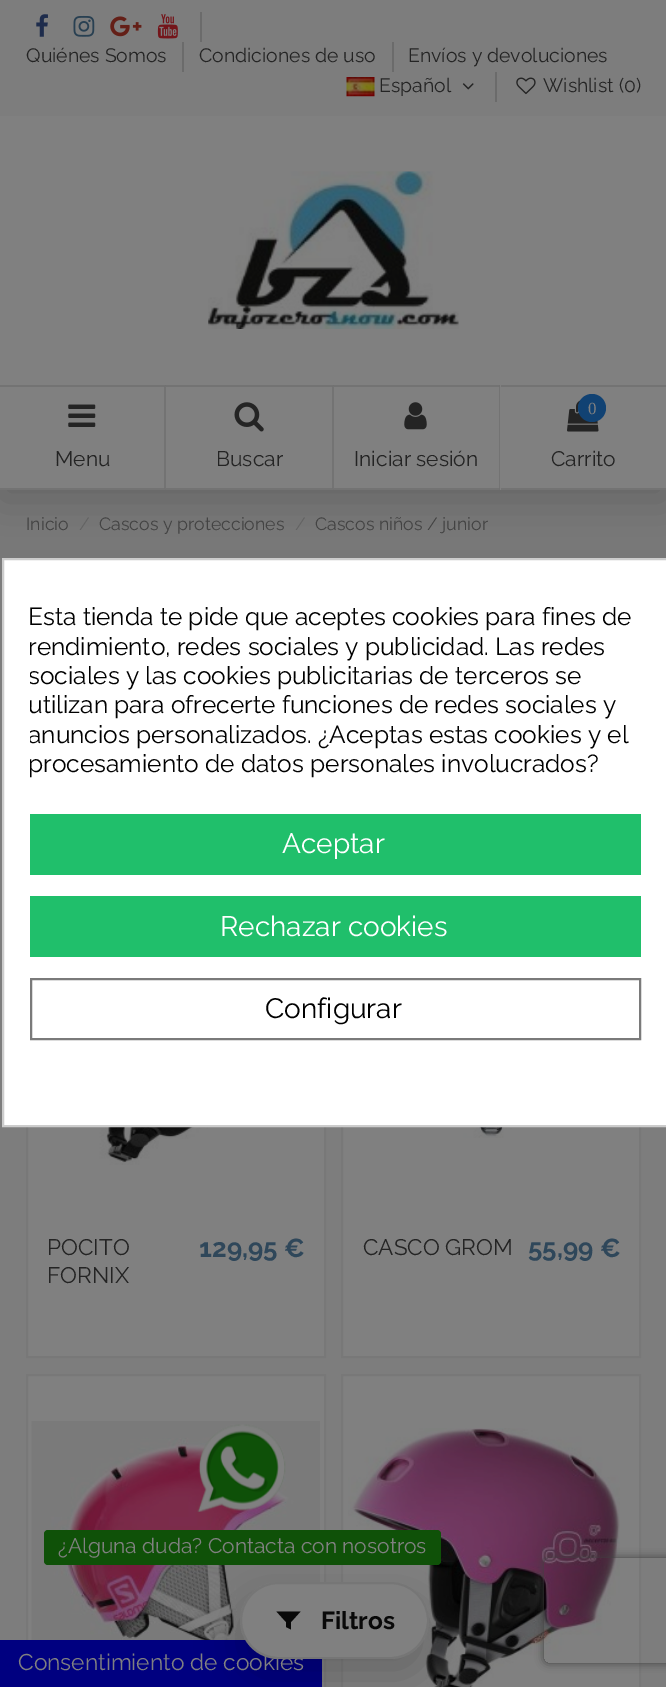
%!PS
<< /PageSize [666 1687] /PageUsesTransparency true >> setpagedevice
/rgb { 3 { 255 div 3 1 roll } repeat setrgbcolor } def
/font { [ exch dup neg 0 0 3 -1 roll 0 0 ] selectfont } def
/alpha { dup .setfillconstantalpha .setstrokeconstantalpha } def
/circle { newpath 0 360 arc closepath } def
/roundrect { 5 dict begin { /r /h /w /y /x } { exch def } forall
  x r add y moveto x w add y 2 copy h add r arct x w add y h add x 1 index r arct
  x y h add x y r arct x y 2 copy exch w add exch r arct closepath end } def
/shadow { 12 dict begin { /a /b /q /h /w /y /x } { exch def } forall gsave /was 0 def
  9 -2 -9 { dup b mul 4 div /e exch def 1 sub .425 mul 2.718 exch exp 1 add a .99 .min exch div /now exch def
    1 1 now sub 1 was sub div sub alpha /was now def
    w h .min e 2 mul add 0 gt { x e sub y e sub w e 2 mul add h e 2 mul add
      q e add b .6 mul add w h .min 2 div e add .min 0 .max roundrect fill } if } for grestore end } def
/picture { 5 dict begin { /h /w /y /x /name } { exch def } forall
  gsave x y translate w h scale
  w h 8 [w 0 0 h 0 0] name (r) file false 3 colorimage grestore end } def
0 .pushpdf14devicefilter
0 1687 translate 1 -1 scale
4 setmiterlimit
125 125 125 rgb
0 0 666 1687 rectfill
120 120 120 rgb
0 490 666 68 rectfill
0 0 0 rgb
0 9 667 490 0 22 0.18 shadow
128 128 128 rgb
0 116 666 374 rectfill
125 125 125 rgb
0 0 666 116 rectfill
(img/1.rgb) 36 14 12 23 picture
(img/2.rgb) 73 15 22 22 picture
(img/3.rgb) 110 16 32 21 picture
(img/4.rgb) 157 14 21 25 picture
[
  [200 12 2 30 107 107 107]
  [182 42 2 30 107 107 107]
  [392 42 2 30 107 107 107]
] { aload pop rgb rectfill } forall
(img/5.rgb) 346 77 29 20 picture
(img/6.rgb) 462 83 12 7 picture
495 72 2 30 rectfill
(img/7.rgb) 516 77 20 18 picture
(img/8.rgb) 208 171 251 158 picture
115 115 115 rgb
0 385 moveto 166 385 lineto 164 387 lineto 0 387 lineto closepath fill
0.11 alpha
11 11 11 rgb
166 385 moveto 166 490 lineto 164 488 lineto 164 387 lineto closepath fill
166 490 moveto 0 490 lineto 0 488 lineto 164 488 lineto closepath fill
1 alpha
(img/9.rgb) 68 404 28 23 picture
115 115 115 rgb
166 385 moveto 334 385 lineto 332 387 lineto 166 387 lineto closepath fill
0.11 alpha
11 11 11 rgb
334 385 moveto 334 490 lineto 332 488 lineto 332 387 lineto closepath fill
334 490 moveto 166 490 lineto 166 488 lineto 332 488 lineto closepath fill
1 alpha
(img/10.rgb) 234 402 30 30 picture
115 115 115 rgb
334 385 moveto 500 385 lineto 499 387 lineto 334 387 lineto closepath fill
0.11 alpha
11 11 11 rgb
500 385 moveto 500 490 lineto 499 488 lineto 499 387 lineto closepath fill
500 490 moveto 334 490 lineto 334 488 lineto 499 488 lineto closepath fill
1 alpha
(img/11.rgb) 404 402 23 28 picture
115 115 115 rgb
501 385 165 2 rectfill
501 488 165 2 rectfill
(img/12.rgb) 567 400 32 32 picture
17 66 115 rgb
592 408 14 circle fill
128 128 128 rgb
28 1127 296 229 rectfill
120 120 120 rgb
2 setlinewidth
27 841 298 516 rectstroke
(img/13.rgb) 51 1127 255 38 picture
128 128 128 rgb
343 1127 296 229 rectfill
120 120 120 rgb
342 841 298 516 rectstroke
(img/14.rgb) 388 1127 204 11 picture
128 128 128 rgb
27 1375 moveto 325 1375 lineto 325 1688 lineto 27 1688 lineto closepath gsave fill grestore
120 120 120 rgb
stroke
(img/15.rgb) 31 1421 289 219 picture
128 128 128 rgb
342 1375 moveto 640 1375 lineto 640 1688 lineto 342 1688 lineto closepath gsave fill grestore
120 120 120 rgb
stroke
(img/16.rgb) 348 1428 272 259 picture
(img/17.rgb) 197 1424 89 88 picture
15 81 8 rgb
44 1530 397 35 4 roundrect fill
255 255 255 rgb
3 559 moveto 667 559 lineto 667 1126 lineto 3 1126 lineto closepath gsave fill grestore
204 204 204 rgb
stroke
32 191 107 rgb
30 814 611 61 rectfill
30 896 611 61 rectfill
122 122 122 rgb
31 979 609 60 rectstroke
0 0 128 rgb
0 1640 322 47 rectfill
0 0 0 rgb
240 1600 189 77 38.5 21 0.18 shadow
128 128 128 rgb
240 1582 189 77 38.5 roundrect fill
gsave
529 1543 moveto 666 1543 lineto 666 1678 lineto 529 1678 lineto closepath 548 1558 moveto 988 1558 lineto 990 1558 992 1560 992 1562 curveto 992 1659 lineto 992 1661 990 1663 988 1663 curveto 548 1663 lineto 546 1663 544 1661 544 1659 curveto 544 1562 lineto 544 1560 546 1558 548 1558 curveto closepath eoclip newpath
64 64 64 rgb
544 1558 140 105 4 4.5 1 shadow
grestore
/Raleway-Regular 19.4 font
36 36 36 rgb
[
  [(Quiénes Somos) 26 62]
  [(Condiciones de uso) 199 62]
  [(Envíos y devoluciones) 408 62]
  [(Español) 379 92]
  [(Wishlist \(0\)) 543 92]
] { aload pop moveto show } forall
/Raleway-Regular 21 font
[
  [(Menu) 55 466]
  [(Buscar) 216 466]
  [(Iniciar sesión) 354 466]
] { aload pop moveto show } forall
/LiberationSerif-Regular 17 font
128 128 128 rgb
588 414 moveto (0) show
/Raleway-Regular 21 font
36 36 36 rgb
551 466 moveto (Carrito) show
/Raleway-Regular 17.75 font
67 67 67 rgb
26 530 moveto (Inicio) show
99 99 99 rgb
79 530 moveto (/) show
67 67 67 rgb
99 530 moveto (Cascos y protecciones) show
99 99 99 rgb
295 530 moveto (/) show
67 67 67 rgb
315 530 moveto (Cascos niños / junior) show
/Raleway-Regular 22.5 font
36 36 36 rgb
47 1255 moveto (POCITO) show
47 1283 moveto (FORNIX) show
/Raleway-Bold 26 font
47 71 90 rgb
199 1257 moveto (129,95 €) show
/Raleway-Regular 22.5 font
36 36 36 rgb
363 1255 moveto (CASCO GROM) show
/Raleway-Bold 26 font
47 71 90 rgb
528 1257 moveto (55,99 €) show
/Raleway-Regular 21 font
128 128 128 rgb
58 1553 moveto (¿Alguna duda? Contacta con nosotros) show
/Raleway-Regular 24.5 font
0 0 0 rgb
28 625 moveto (Esta tienda te pide que aceptes cookies para fines de) show
gsave
30 602 611 177 rectclip
[
  [(rendimiento, redes sociales y publicidad. Las redes) 28 655]
  [(sociales y las cookies publicitarias de terceros se) 28 684]
  [(utilizan para ofrecerte funciones de redes sociales y) 28 713]
  [(anuncios personalizados. ¿Aceptas estas cookies y el) 28 743]
  [(procesamiento de datos personales involucrados?) 28 772]
] { aload pop moveto show } forall
grestore
/Raleway-Regular 28 font
255 255 255 rgb
282 853 moveto (Aceptar) show
220 936 moveto (Rechazar cookies) show
0 0 0 rgb
265 1018 moveto (Configurar) show
/Raleway-Regular 22.75 font
128 128 128 rgb
18 1670 moveto (Consentimiento de cookies) show
0.08 alpha
0 0 0 rgb
241 1583 187 75 37.5 roundrect stroke
1 alpha
9 9 9 rgb
276.5 1611.5 moveto 300.5 1611.5 lineto 291 1622 lineto 291 1629.5 lineto 286 1627 lineto 286 1622 lineto closepath fill
/Raleway-Bold 24.5 font
321 1629 moveto (Filtros) show
.poppdf14devicefilter showpage
